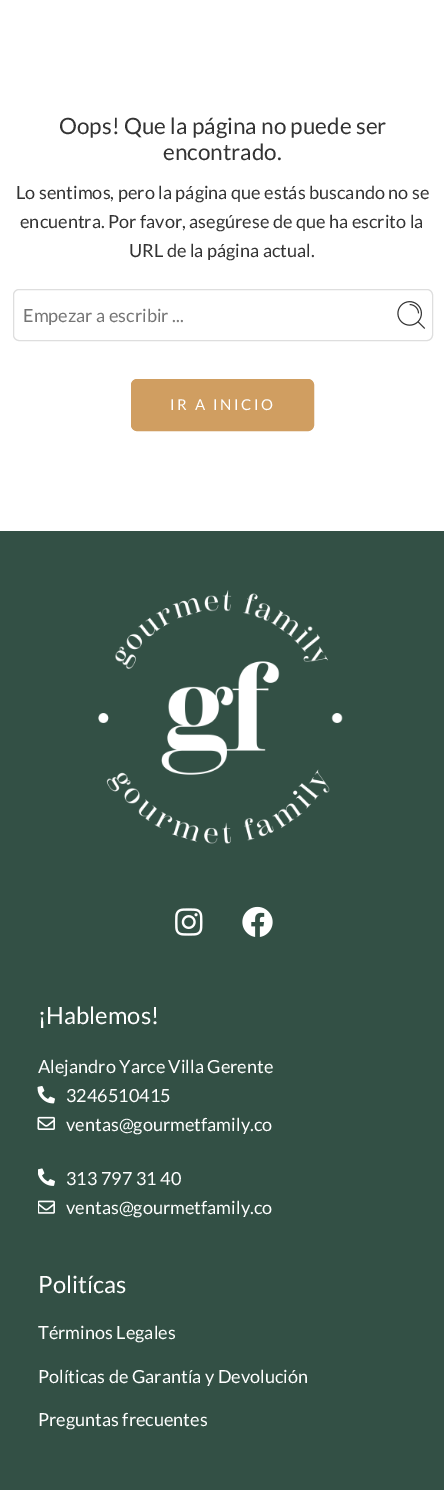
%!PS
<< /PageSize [444 1490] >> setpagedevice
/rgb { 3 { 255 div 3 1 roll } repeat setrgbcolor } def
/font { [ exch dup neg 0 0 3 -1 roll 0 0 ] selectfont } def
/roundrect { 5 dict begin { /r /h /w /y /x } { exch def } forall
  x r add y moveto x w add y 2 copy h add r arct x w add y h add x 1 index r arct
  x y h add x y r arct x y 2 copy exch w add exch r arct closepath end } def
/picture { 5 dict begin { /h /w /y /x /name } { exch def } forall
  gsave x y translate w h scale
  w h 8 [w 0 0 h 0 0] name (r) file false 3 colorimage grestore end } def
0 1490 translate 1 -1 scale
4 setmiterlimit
255 255 255 rgb
0 0 444 1490 rectfill
222 222 222 rgb
13.5 289.5 419 51 5.5 roundrect stroke
(img/1.rgb) 397 301 29 28 picture
208 158 97 rgb
131.5 379.5 182 51 5.5 roundrect gsave fill grestore
stroke
51 80 69 rgb
0 531 444 959 rectfill
(img/2.rgb) 98 590 245 254 picture
(img/3.rgb) 175 908 28 28 picture
(img/4.rgb) 242 906 31 31 picture
(img/5.rgb) 37 1086 18 18 picture
(img/6.rgb) 37 1116 18 14 picture
(img/7.rgb) 38 1168 17 18 picture
(img/8.rgb) 38 1200 17 14 picture
/Lato-Regular 22.5 font
51 51 51 rgb
59 134 moveto (Oops! Que la página no puede ser) show
163 160 moveto (encontrado.) show
/Lato-Regular 18.1 font
[
  [(Lo sentimos, pero la página que estás buscando no se) 16 199]
  [(encuentra. Por favor, asegúrese de que ha escrito la) 20 228]
  [(URL de la página actual.) 129 257]
] { aload pop moveto show } forall
117 117 117 rgb
23 322 moveto (Empezar a escribir ...) show
/Lato-Regular 15 font
255 255 255 rgb
170 410 moveto 2.5 0 (IR A INICIO) ashow
/Lato-Regular 23.75 font
38 1024 moveto (¡Hablemos!) show
/Lato-Regular 18.1 font
[
  [(Alejandro Yarce Villa Gerente) 38 1073]
  [(3246510415) 66 1102]
  [(ventas@gourmetfamily.co) 66 1131]
  [(313 797 31 40) 66 1185]
  [(ventas@gourmetfamily.co) 66 1214]
] { aload pop moveto show } forall
/Lato-Regular 23.75 font
38 1293 moveto (Politícas) show
/Lato-Regular 18.1 font
[
  [(Términos Legales) 38 1339]
  [(Políticas de Garantía y Devolución) 38 1383]
  [(Preguntas frecuentes) 38 1426]
] { aload pop moveto show } forall
showpage
